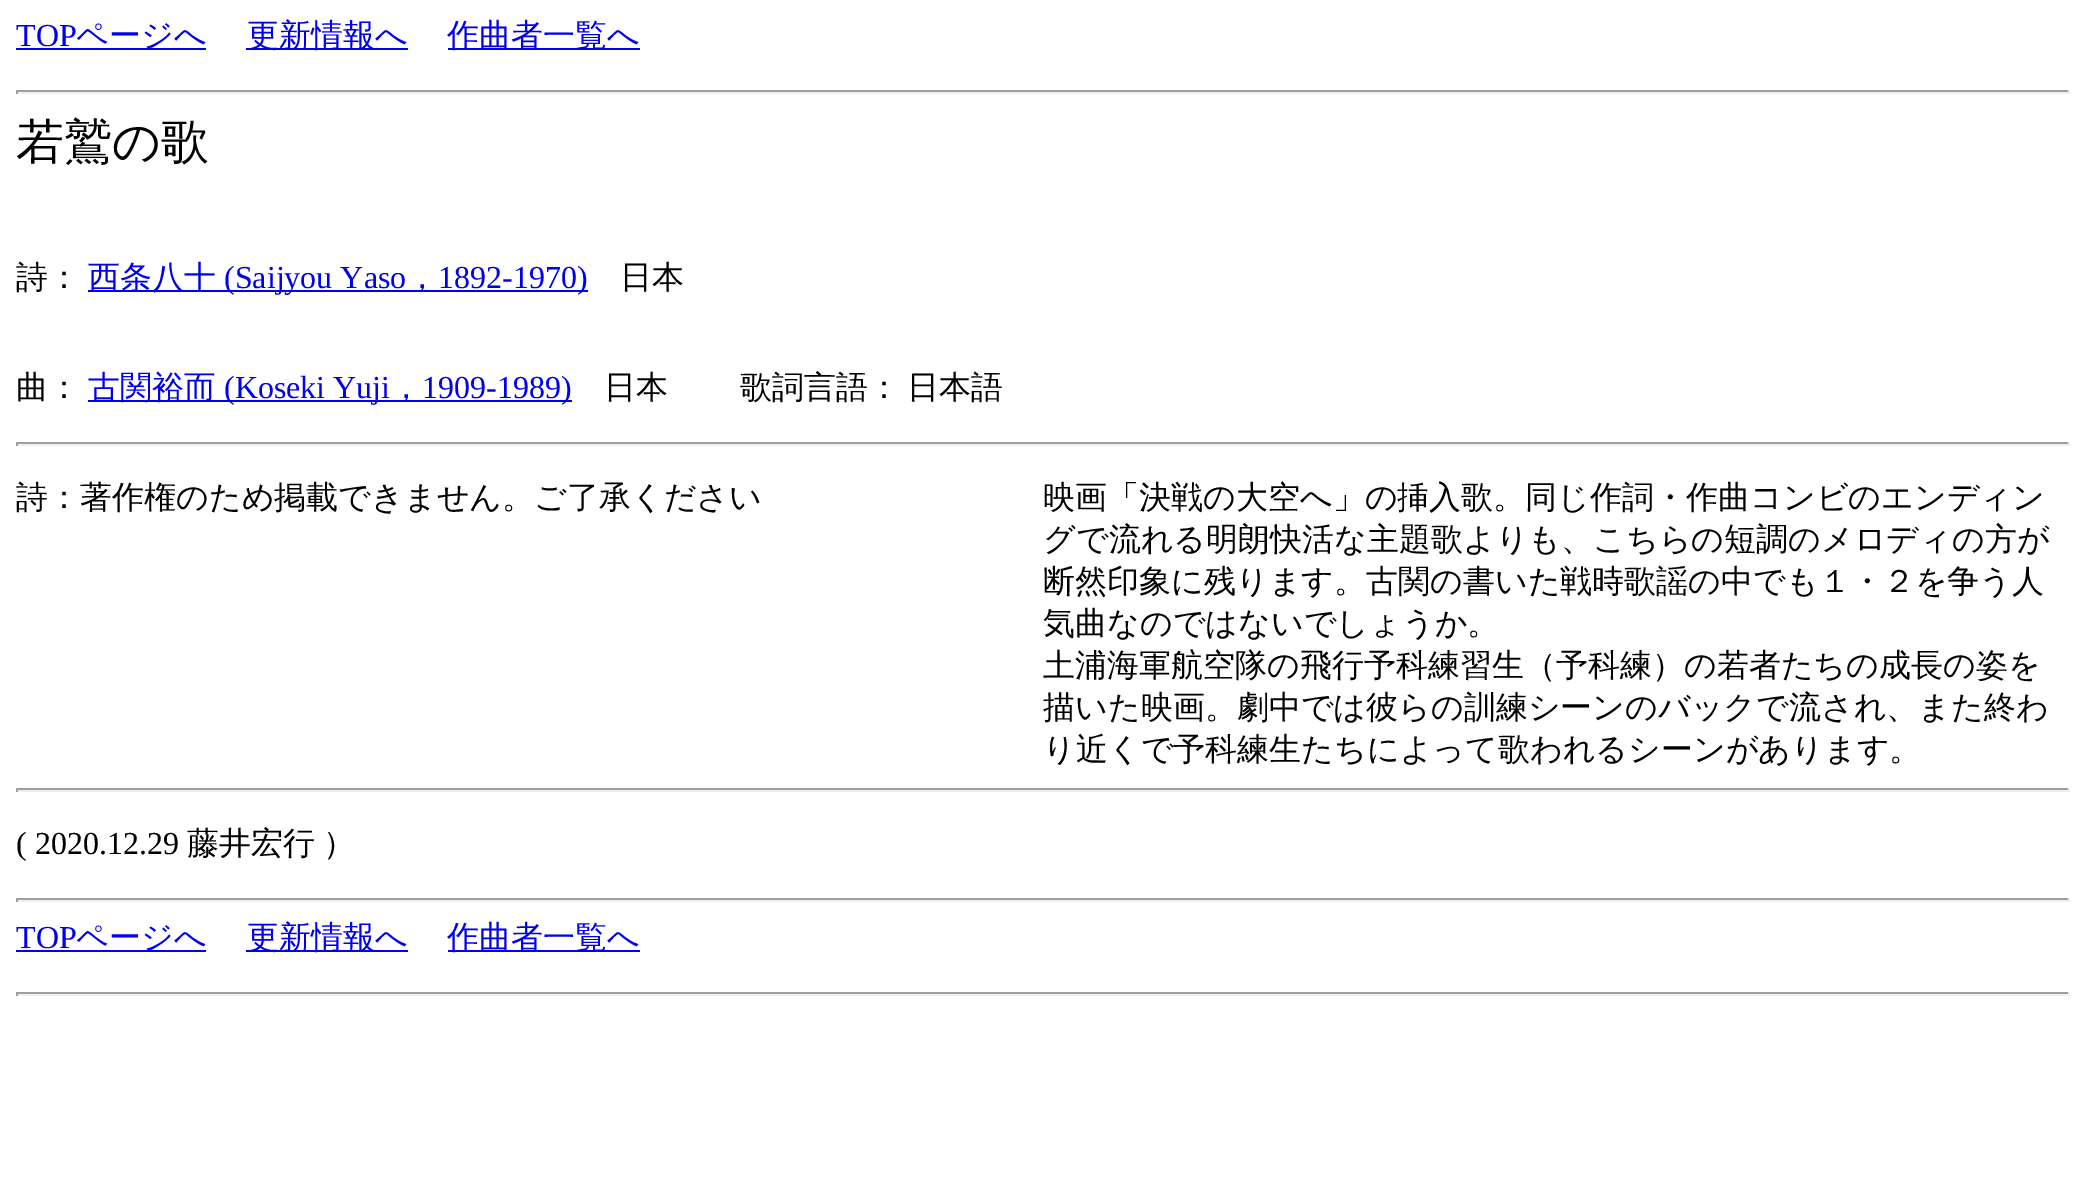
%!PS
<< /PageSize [2085 1200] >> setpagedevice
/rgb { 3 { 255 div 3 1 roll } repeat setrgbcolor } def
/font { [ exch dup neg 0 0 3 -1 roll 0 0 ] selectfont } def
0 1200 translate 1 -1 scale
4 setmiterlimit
255 255 255 rgb
0 0 2085 1200 rectfill
[
  [16 48 190 2 0 0 238]
  [246 48 162 2 0 0 238]
  [448 48 192 2 0 0 238]
  [16 90 2054 2 159 159 159]
  [2068 90 2 4 238 238 238]
  [16 92 2054 2 238 238 238]
  [16 90 2 4 159 159 159]
  [88 290 500 2 0 0 238]
  [88 400 484 2 0 0 238]
  [16 442 2054 2 159 159 159]
  [2068 442 2 4 238 238 238]
  [16 444 2054 2 238 238 238]
  [16 442 2 4 159 159 159]
  [16 788 2054 2 159 159 159]
  [2068 788 2 4 238 238 238]
  [16 790 2054 2 238 238 238]
  [16 788 2 4 159 159 159]
  [16 898 2054 2 159 159 159]
  [2068 898 2 4 238 238 238]
  [16 900 2054 2 238 238 238]
  [16 898 2 4 159 159 159]
  [16 950 190 2 0 0 238]
  [246 950 162 2 0 0 238]
  [448 950 192 2 0 0 238]
  [16 992 2054 2 159 159 159]
  [2068 992 2 4 238 238 238]
  [16 994 2054 2 238 238 238]
  [16 992 2 4 159 159 159]
] { aload pop rgb rectfill } forall
/LiberationSerif-Regular 32 font
0 0 238 rgb
16 46 moveto (TOP) show
/WenQuanYiZenHei-Medium 32 font
[
  [(ページへ) 76 46]
  [(更新情報へ) 247 46]
  [(作曲者一覧へ) 447 46]
] { aload pop moveto show } forall
/WenQuanYiZenHei-Medium 48 font
0 0 0 rgb
16 158 moveto (若鷲の歌) show
/WenQuanYiZenHei-Medium 32 font
16 288 moveto (詩：) show
0 0 238 rgb
88 288 moveto (西条八十) show
/LiberationSerif-Regular 32 font
224 288 moveto (\(Saijyou Yaso) show
/WenQuanYiZenHei-Medium 32 font
406 288 moveto (，) show
/LiberationSerif-Regular 32 font
438 288 moveto (1892-1970\)) show
/WenQuanYiZenHei-Medium 32 font
0 0 0 rgb
620 288 moveto (日本) show
16 398 moveto (曲：) show
0 0 238 rgb
88 398 moveto (古関裕而) show
/LiberationSerif-Regular 32 font
224 398 moveto (\(Koseki Yuji) show
/WenQuanYiZenHei-Medium 32 font
390 398 moveto (，) show
/LiberationSerif-Regular 32 font
422 398 moveto (1909-1989\)) show
/WenQuanYiZenHei-Medium 32 font
0 0 0 rgb
604 398 moveto -2 0 32 (日本 　　歌詞言語： 日本語) widthshow
[
  [(詩：著作権のため掲載できません。ご了承ください) 16 508]
  [(映画「決戦の大空へ」の挿入歌。同じ作詞・作曲コンビのエンディン) 1043 508]
  [(グで流れる明朗快活な主題歌よりも、こちらの短調のメロディの方が) 1043 550]
  [(断然印象に残ります。古関の書いた戦時歌謡の中でも１・２を争う人) 1043 592]
  [(気曲なのではないでしょうか。) 1043 634]
  [(土浦海軍航空隊の飛行予科練習生（予科練）の若者たちの成長の姿を) 1043 676]
  [(描いた映画。劇中では彼らの訓練シーンのバックで流され、また終わ) 1043 718]
  [(り近くで予科練生たちによって歌われるシーンがあります。) 1043 760]
] { aload pop moveto show } forall
/LiberationSerif-Regular 32 font
16 854 moveto (\( 2020.12.29) show
/WenQuanYiZenHei-Medium 32 font
187 854 moveto -2 0 32 (藤井宏行 ）) widthshow
/LiberationSerif-Regular 32 font
0 0 238 rgb
16 948 moveto (TOP) show
/WenQuanYiZenHei-Medium 32 font
[
  [(ページへ) 76 948]
  [(更新情報へ) 247 948]
  [(作曲者一覧へ) 447 948]
] { aload pop moveto show } forall
showpage
